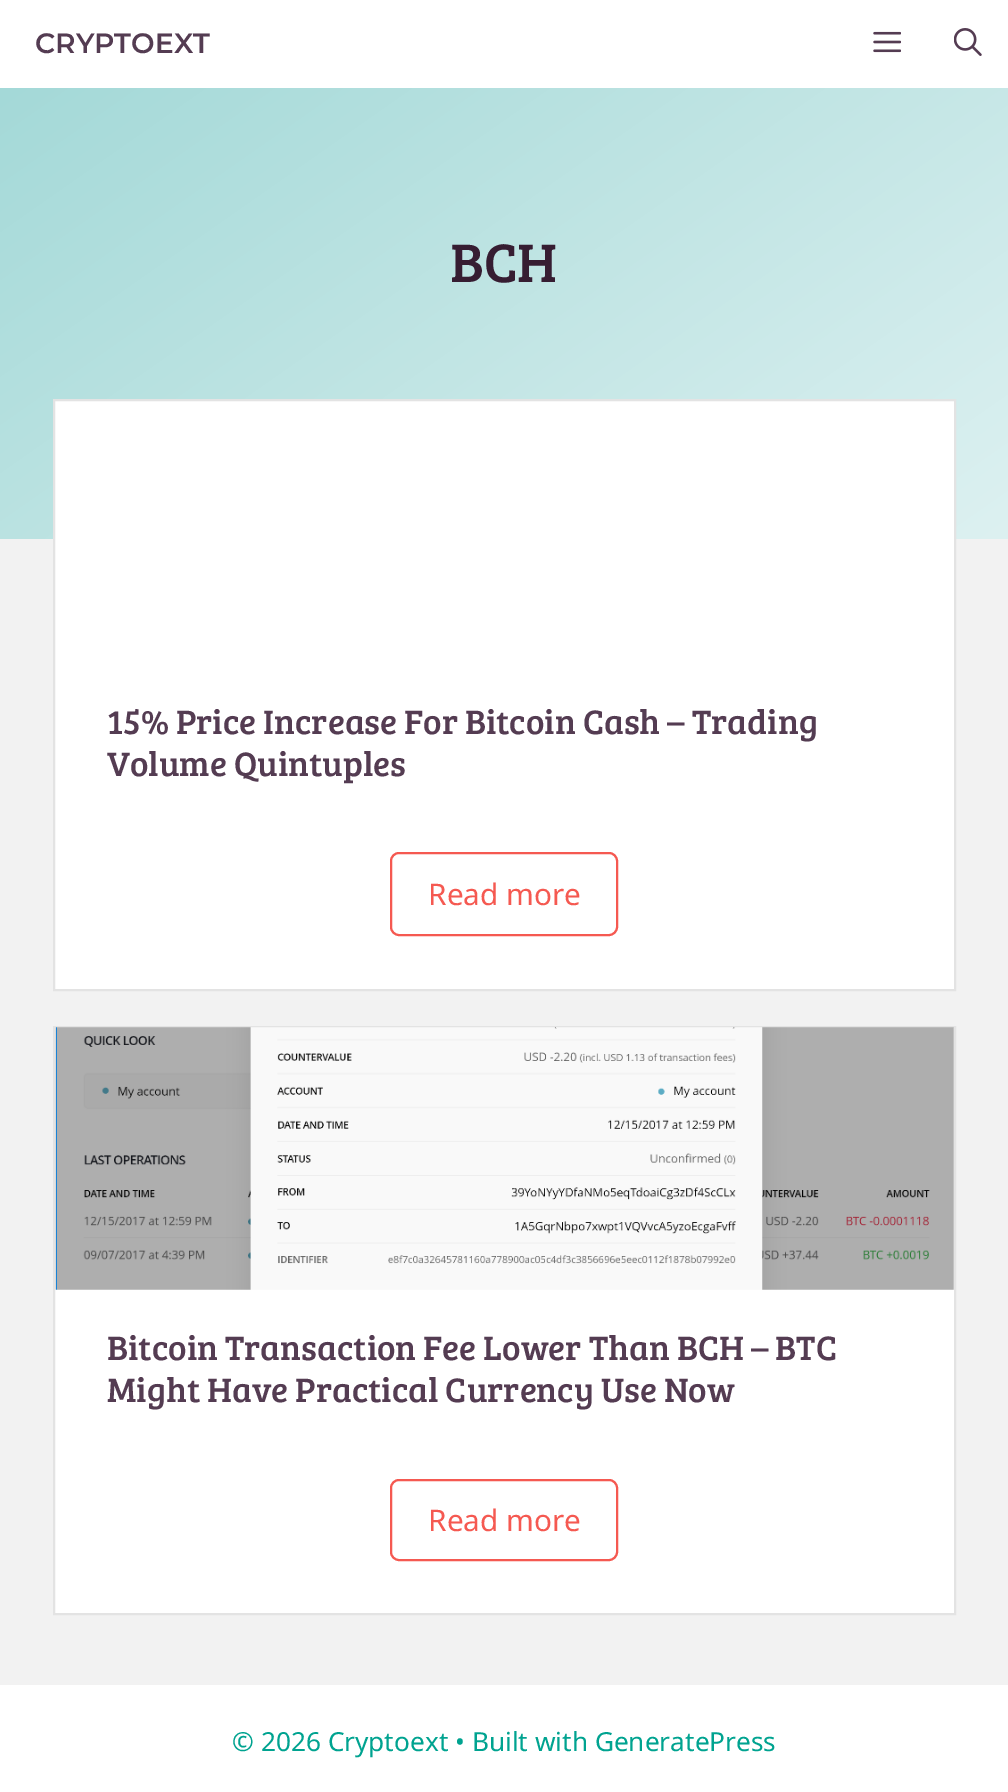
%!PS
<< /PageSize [1008 1792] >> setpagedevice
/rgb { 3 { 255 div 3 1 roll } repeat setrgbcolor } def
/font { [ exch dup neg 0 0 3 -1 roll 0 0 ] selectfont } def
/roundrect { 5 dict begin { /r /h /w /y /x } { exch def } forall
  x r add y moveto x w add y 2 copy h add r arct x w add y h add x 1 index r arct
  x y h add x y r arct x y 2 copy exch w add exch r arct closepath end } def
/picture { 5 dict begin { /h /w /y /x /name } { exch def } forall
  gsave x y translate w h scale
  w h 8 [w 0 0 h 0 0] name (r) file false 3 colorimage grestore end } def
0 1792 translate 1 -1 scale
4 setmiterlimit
242 242 242 rgb
0 0 1008 1792 rectfill
255 255 255 rgb
0 0 1008 88 rectfill
(img/1.rgb) 873 31 28 22 picture
(img/2.rgb) 954 28 28 28 picture
gsave 0 88 moveto 1008 88 lineto 1008 539 lineto 0 539 lineto closepath clip newpath
<< /ShadingType 2 /ColorSpace /DeviceRGB /Coords [232 -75 776 702] /Extend [true true] /Function << /FunctionType 2 /Domain [0 1] /C0 [0.643 0.851 0.847] /C1 [0.867 0.945 0.945] /N 1 >> >> shfill grestore
54 400 moveto 955 400 lineto 955 990 lineto 54 990 lineto closepath gsave fill grestore
227 227 227 rgb
2 setlinewidth
stroke
245 89 81 rgb
391 853 226 82 8 roundrect stroke
255 255 255 rgb
54 1027 moveto 955 1027 lineto 955 1614 lineto 54 1614 lineto closepath gsave fill grestore
227 227 227 rgb
stroke
(img/3.rgb) 55 1027 899 263 picture
245 89 81 rgb
391 1480 226 80 8 roundrect stroke
255 255 255 rgb
0 1685 1008 107 rectfill
/Montserrat-SemiBold 28 font
84 60 82 rgb
35 53 moveto (CRYPTOEXT) show
/BreeSerif-Regular 56 font
54 29 50 rgb
450 282 moveto (BCH) show
/BreeSerif-Regular 35 font
84 60 82 rgb
107 734 moveto (15% Price Increase For Bitcoin Cash – Trading) show
107 776 moveto (Volume Quintuples) show
/NotoSans-Regular 29.75 font
245 89 81 rgb
428 905 moveto (Read more) show
/BreeSerif-Regular 35 font
84 60 82 rgb
107 1360 moveto (Bitcoin Transaction Fee Lower Than BCH – BTC) show
107 1402 moveto (Might Have Practical Currency Use Now) show
/NotoSans-Regular 29.75 font
245 89 81 rgb
428 1531 moveto (Read more) show
/NotoSans-Regular 26.25 font
0 163 144 rgb
232 1751 moveto (© 2026 Cryptoext • Built with GeneratePress) show
showpage
